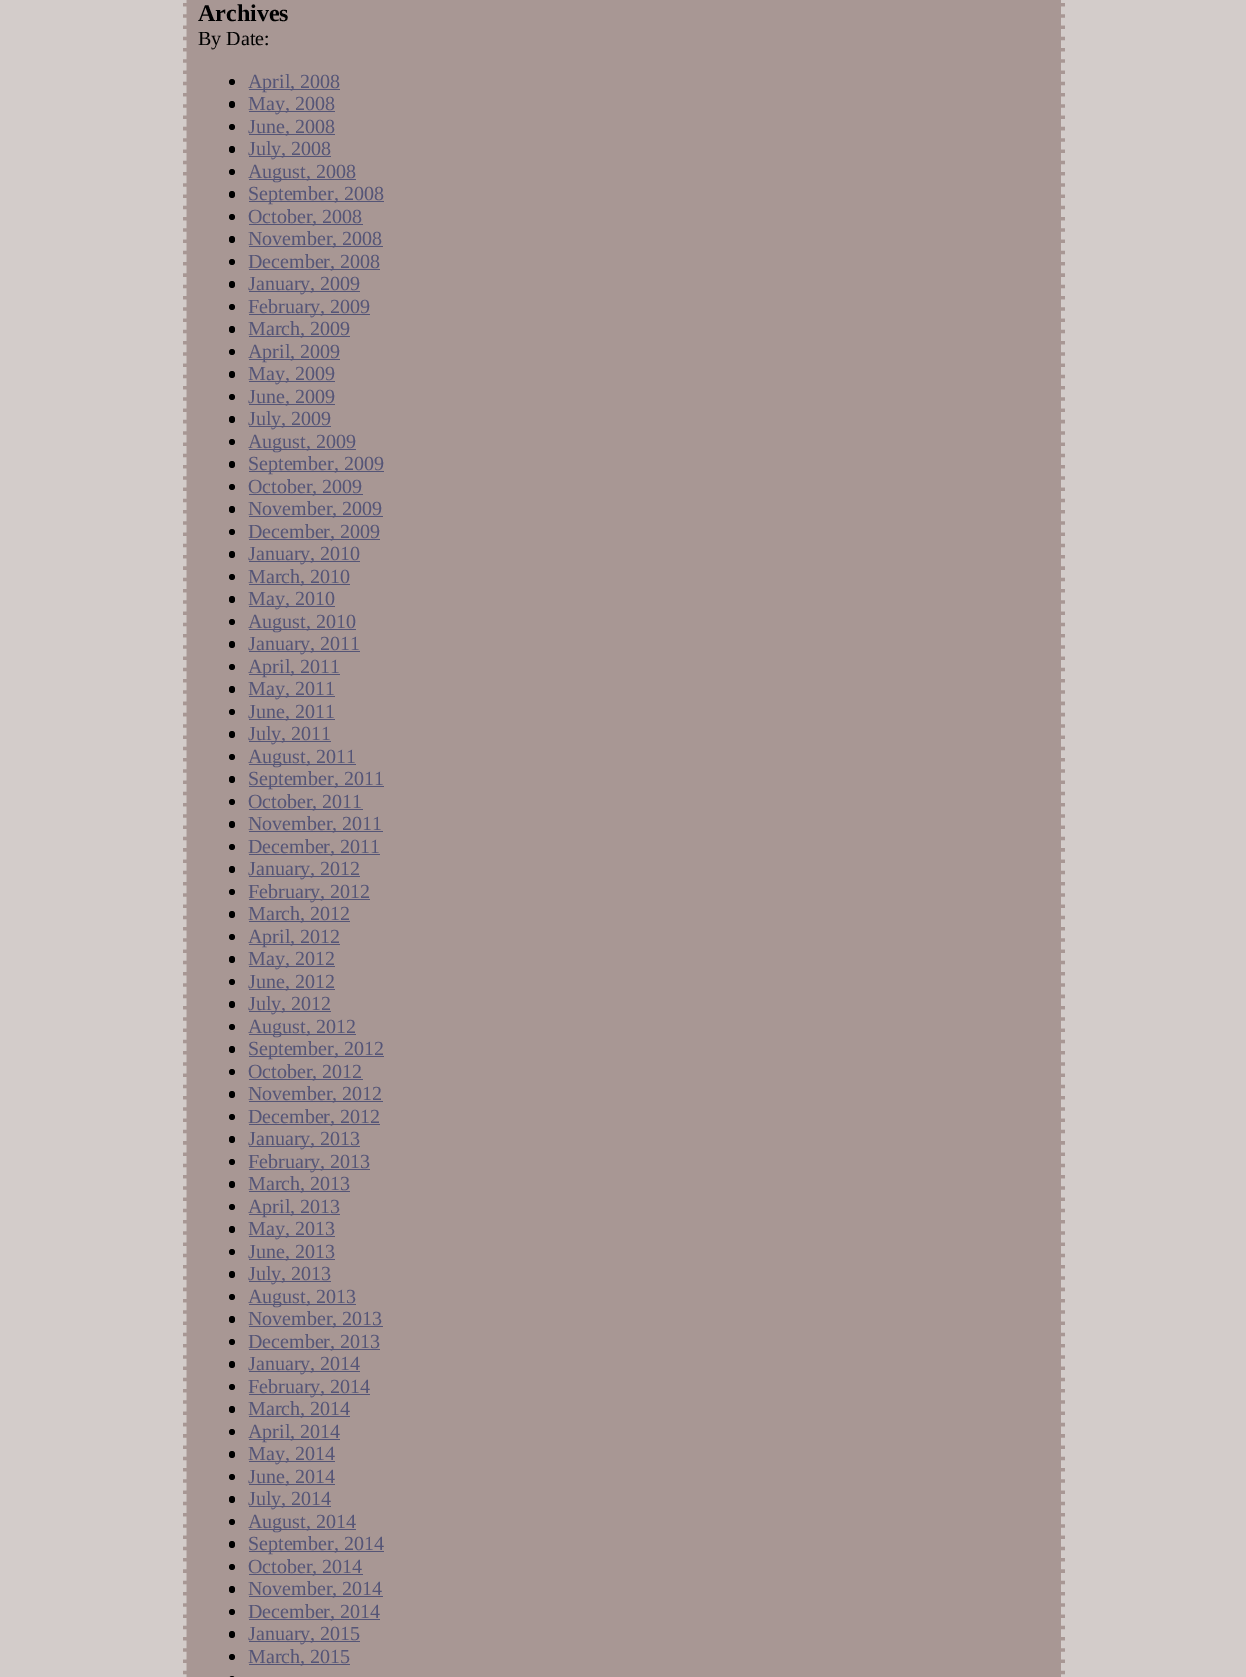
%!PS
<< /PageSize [1246 1677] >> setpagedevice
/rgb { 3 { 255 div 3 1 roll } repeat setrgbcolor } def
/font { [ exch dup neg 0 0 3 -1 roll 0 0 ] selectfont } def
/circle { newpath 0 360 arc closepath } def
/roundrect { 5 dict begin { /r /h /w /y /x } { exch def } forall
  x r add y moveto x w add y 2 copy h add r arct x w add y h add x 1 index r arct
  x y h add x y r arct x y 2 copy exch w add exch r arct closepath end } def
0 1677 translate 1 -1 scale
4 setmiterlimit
211 204 202 rgb
0 0 1246 1677 rectfill
168 151 148 rgb
183 0 882 1677 rectfill
211 204 202 rgb
3.8 setlinewidth
[7.5 3.77] 0 setdash
1063 -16 moveto 1063 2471 lineto stroke
184.5 -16 moveto 184.5 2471 lineto stroke
0 0 0 rgb
232 82 3 circle fill
85 85 119 rgb
249 89 91 1 rectfill
0 0 0 rgb
229 101 6 7 3 roundrect fill
85 85 119 rgb
249 111 86 1 rectfill
0 0 0 rgb
232 127 3 circle fill
85 85 119 rgb
249 134 86 1 rectfill
0 0 0 rgb
229 146 6 7 3 roundrect fill
85 85 119 rgb
249 156 82 1 rectfill
0 0 0 rgb
232 172 3 circle fill
85 85 119 rgb
249 179 107 1 rectfill
0 0 0 rgb
229 191 6 7 3 roundrect fill
85 85 119 rgb
249 201 135 1 rectfill
0 0 0 rgb
232 217 3 circle fill
85 85 119 rgb
249 224 114 1 rectfill
0 0 0 rgb
229 236 6 7 3 roundrect fill
85 85 119 rgb
249 246 134 1 rectfill
0 0 0 rgb
232 262 3 circle fill
85 85 119 rgb
249 269 131 1 rectfill
0 0 0 rgb
229 281 6 7 3 roundrect fill
85 85 119 rgb
249 291 111 1 rectfill
0 0 0 rgb
232 307 3 circle fill
85 85 119 rgb
249 314 121 1 rectfill
0 0 0 rgb
229 326 6 7 3 roundrect fill
85 85 119 rgb
249 336 101 1 rectfill
0 0 0 rgb
232 352 3 circle fill
85 85 119 rgb
249 359 91 1 rectfill
0 0 0 rgb
229 371 6 7 3 roundrect fill
85 85 119 rgb
249 381 86 1 rectfill
0 0 0 rgb
232 397 3 circle fill
85 85 119 rgb
249 404 86 1 rectfill
0 0 0 rgb
229 416 6 7 3 roundrect fill
85 85 119 rgb
249 426 82 1 rectfill
0 0 0 rgb
232 442 3 circle fill
85 85 119 rgb
249 449 107 1 rectfill
0 0 0 rgb
229 461 6 7 3 roundrect fill
85 85 119 rgb
249 471 135 1 rectfill
0 0 0 rgb
232 487 3 circle fill
85 85 119 rgb
249 494 114 1 rectfill
0 0 0 rgb
229 506 6 7 3 roundrect fill
85 85 119 rgb
249 516 134 1 rectfill
0 0 0 rgb
232 532 3 circle fill
85 85 119 rgb
249 539 131 1 rectfill
0 0 0 rgb
229 551 6 7 3 roundrect fill
85 85 119 rgb
249 561 111 1 rectfill
0 0 0 rgb
232 577 3 circle fill
85 85 119 rgb
249 584 101 1 rectfill
0 0 0 rgb
229 596 6 7 3 roundrect fill
85 85 119 rgb
249 606 86 1 rectfill
0 0 0 rgb
232 622 3 circle fill
85 85 119 rgb
249 629 107 1 rectfill
0 0 0 rgb
229 641 6 7 3 roundrect fill
85 85 119 rgb
249 651 111 1 rectfill
0 0 0 rgb
232 667 3 circle fill
85 85 119 rgb
249 674 91 1 rectfill
0 0 0 rgb
229 686 6 7 3 roundrect fill
85 85 119 rgb
249 696 86 1 rectfill
0 0 0 rgb
232 712 3 circle fill
85 85 119 rgb
249 719 86 1 rectfill
0 0 0 rgb
229 731 6 7 3 roundrect fill
85 85 119 rgb
249 741 82 1 rectfill
0 0 0 rgb
232 757 3 circle fill
85 85 119 rgb
249 764 107 1 rectfill
0 0 0 rgb
229 776 6 7 3 roundrect fill
85 85 119 rgb
249 786 135 1 rectfill
0 0 0 rgb
232 802 3 circle fill
85 85 119 rgb
249 809 114 1 rectfill
0 0 0 rgb
229 821 6 7 3 roundrect fill
85 85 119 rgb
249 831 134 1 rectfill
0 0 0 rgb
232 847 3 circle fill
85 85 119 rgb
249 854 131 1 rectfill
0 0 0 rgb
229 866 6 7 3 roundrect fill
85 85 119 rgb
249 876 111 1 rectfill
0 0 0 rgb
232 892 3 circle fill
85 85 119 rgb
249 899 121 1 rectfill
0 0 0 rgb
229 911 6 7 3 roundrect fill
85 85 119 rgb
249 921 101 1 rectfill
0 0 0 rgb
232 937 3 circle fill
85 85 119 rgb
249 944 91 1 rectfill
0 0 0 rgb
229 956 6 7 3 roundrect fill
85 85 119 rgb
249 966 86 1 rectfill
0 0 0 rgb
232 982 3 circle fill
85 85 119 rgb
249 989 86 1 rectfill
0 0 0 rgb
229 1001 6 7 3 roundrect fill
85 85 119 rgb
249 1011 82 1 rectfill
0 0 0 rgb
232 1027 3 circle fill
85 85 119 rgb
249 1034 107 1 rectfill
0 0 0 rgb
229 1046 6 7 3 roundrect fill
85 85 119 rgb
249 1056 135 1 rectfill
0 0 0 rgb
232 1072 3 circle fill
85 85 119 rgb
249 1079 114 1 rectfill
0 0 0 rgb
229 1091 6 7 3 roundrect fill
85 85 119 rgb
249 1101 134 1 rectfill
0 0 0 rgb
232 1117 3 circle fill
85 85 119 rgb
249 1124 131 1 rectfill
0 0 0 rgb
229 1136 6 7 3 roundrect fill
85 85 119 rgb
249 1146 111 1 rectfill
0 0 0 rgb
232 1162 3 circle fill
85 85 119 rgb
249 1169 121 1 rectfill
0 0 0 rgb
229 1181 6 7 3 roundrect fill
85 85 119 rgb
249 1191 101 1 rectfill
0 0 0 rgb
232 1207 3 circle fill
85 85 119 rgb
249 1214 91 1 rectfill
0 0 0 rgb
229 1226 6 7 3 roundrect fill
85 85 119 rgb
249 1236 86 1 rectfill
0 0 0 rgb
232 1252 3 circle fill
85 85 119 rgb
249 1259 86 1 rectfill
0 0 0 rgb
229 1271 6 7 3 roundrect fill
85 85 119 rgb
249 1281 82 1 rectfill
0 0 0 rgb
232 1297 3 circle fill
85 85 119 rgb
249 1304 107 1 rectfill
0 0 0 rgb
229 1316 6 7 3 roundrect fill
85 85 119 rgb
249 1326 134 1 rectfill
0 0 0 rgb
232 1342 3 circle fill
85 85 119 rgb
249 1349 131 1 rectfill
0 0 0 rgb
229 1361 6 7 3 roundrect fill
85 85 119 rgb
249 1371 111 1 rectfill
0 0 0 rgb
232 1387 3 circle fill
85 85 119 rgb
249 1394 121 1 rectfill
0 0 0 rgb
229 1406 6 7 3 roundrect fill
85 85 119 rgb
249 1416 101 1 rectfill
0 0 0 rgb
232 1432 3 circle fill
85 85 119 rgb
249 1439 91 1 rectfill
0 0 0 rgb
229 1451 6 7 3 roundrect fill
85 85 119 rgb
249 1461 86 1 rectfill
0 0 0 rgb
232 1477 3 circle fill
85 85 119 rgb
249 1484 86 1 rectfill
0 0 0 rgb
229 1496 6 7 3 roundrect fill
85 85 119 rgb
249 1506 82 1 rectfill
0 0 0 rgb
232 1522 3 circle fill
85 85 119 rgb
249 1529 107 1 rectfill
0 0 0 rgb
229 1541 6 7 3 roundrect fill
85 85 119 rgb
249 1551 135 1 rectfill
0 0 0 rgb
232 1567 3 circle fill
85 85 119 rgb
249 1574 114 1 rectfill
0 0 0 rgb
229 1586 6 7 3 roundrect fill
85 85 119 rgb
249 1596 134 1 rectfill
0 0 0 rgb
232 1612 3 circle fill
85 85 119 rgb
249 1619 131 1 rectfill
0 0 0 rgb
229 1631 6 7 3 roundrect fill
85 85 119 rgb
249 1641 111 1 rectfill
0 0 0 rgb
232 1657 3 circle fill
85 85 119 rgb
249 1664 101 1 rectfill
0 0 0 rgb
229 1676 6 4 3 roundrect fill
/LiberationSerif-Bold 24 font
198 21 moveto (Archives) show
/LiberationSerif-Regular 20 font
198 45 moveto (By Date:) show
85 85 119 rgb
[
  [(April, 2008) 248 88]
  [(May, 2008) 248 110]
  [(June, 2008) 248 133]
  [(July, 2008) 248 155]
  [(August, 2008) 248 178]
  [(September, 2008) 248 200]
  [(October, 2008) 248 223]
  [(November, 2008) 248 245]
  [(December, 2008) 248 268]
  [(January, 2009) 248 290]
  [(February, 2009) 248 313]
  [(March, 2009) 248 335]
  [(April, 2009) 248 358]
  [(May, 2009) 248 380]
  [(June, 2009) 248 403]
  [(July, 2009) 248 425]
  [(August, 2009) 248 448]
  [(September, 2009) 248 470]
  [(October, 2009) 248 493]
  [(November, 2009) 248 515]
  [(December, 2009) 248 538]
  [(January, 2010) 248 560]
  [(March, 2010) 248 583]
  [(May, 2010) 248 605]
  [(August, 2010) 248 628]
  [(January, 2011) 248 650]
  [(April, 2011) 248 673]
  [(May, 2011) 248 695]
  [(June, 2011) 248 718]
  [(July, 2011) 248 740]
  [(August, 2011) 248 763]
  [(September, 2011) 248 785]
  [(October, 2011) 248 808]
  [(November, 2011) 248 830]
  [(December, 2011) 248 853]
  [(January, 2012) 248 875]
  [(February, 2012) 248 898]
  [(March, 2012) 248 920]
  [(April, 2012) 248 943]
  [(May, 2012) 248 965]
  [(June, 2012) 248 988]
  [(July, 2012) 248 1010]
  [(August, 2012) 248 1033]
  [(September, 2012) 248 1055]
  [(October, 2012) 248 1078]
  [(November, 2012) 248 1100]
  [(December, 2012) 248 1123]
  [(January, 2013) 248 1145]
  [(February, 2013) 248 1168]
  [(March, 2013) 248 1190]
  [(April, 2013) 248 1213]
  [(May, 2013) 248 1235]
  [(June, 2013) 248 1258]
  [(July, 2013) 248 1280]
  [(August, 2013) 248 1303]
  [(November, 2013) 248 1325]
  [(December, 2013) 248 1348]
  [(January, 2014) 248 1370]
  [(February, 2014) 248 1393]
  [(March, 2014) 248 1415]
  [(April, 2014) 248 1438]
  [(May, 2014) 248 1460]
  [(June, 2014) 248 1483]
  [(July, 2014) 248 1505]
  [(August, 2014) 248 1528]
  [(September, 2014) 248 1550]
  [(October, 2014) 248 1573]
  [(November, 2014) 248 1595]
  [(December, 2014) 248 1618]
  [(January, 2015) 248 1640]
  [(March, 2015) 248 1663]
] { aload pop moveto show } forall
showpage
